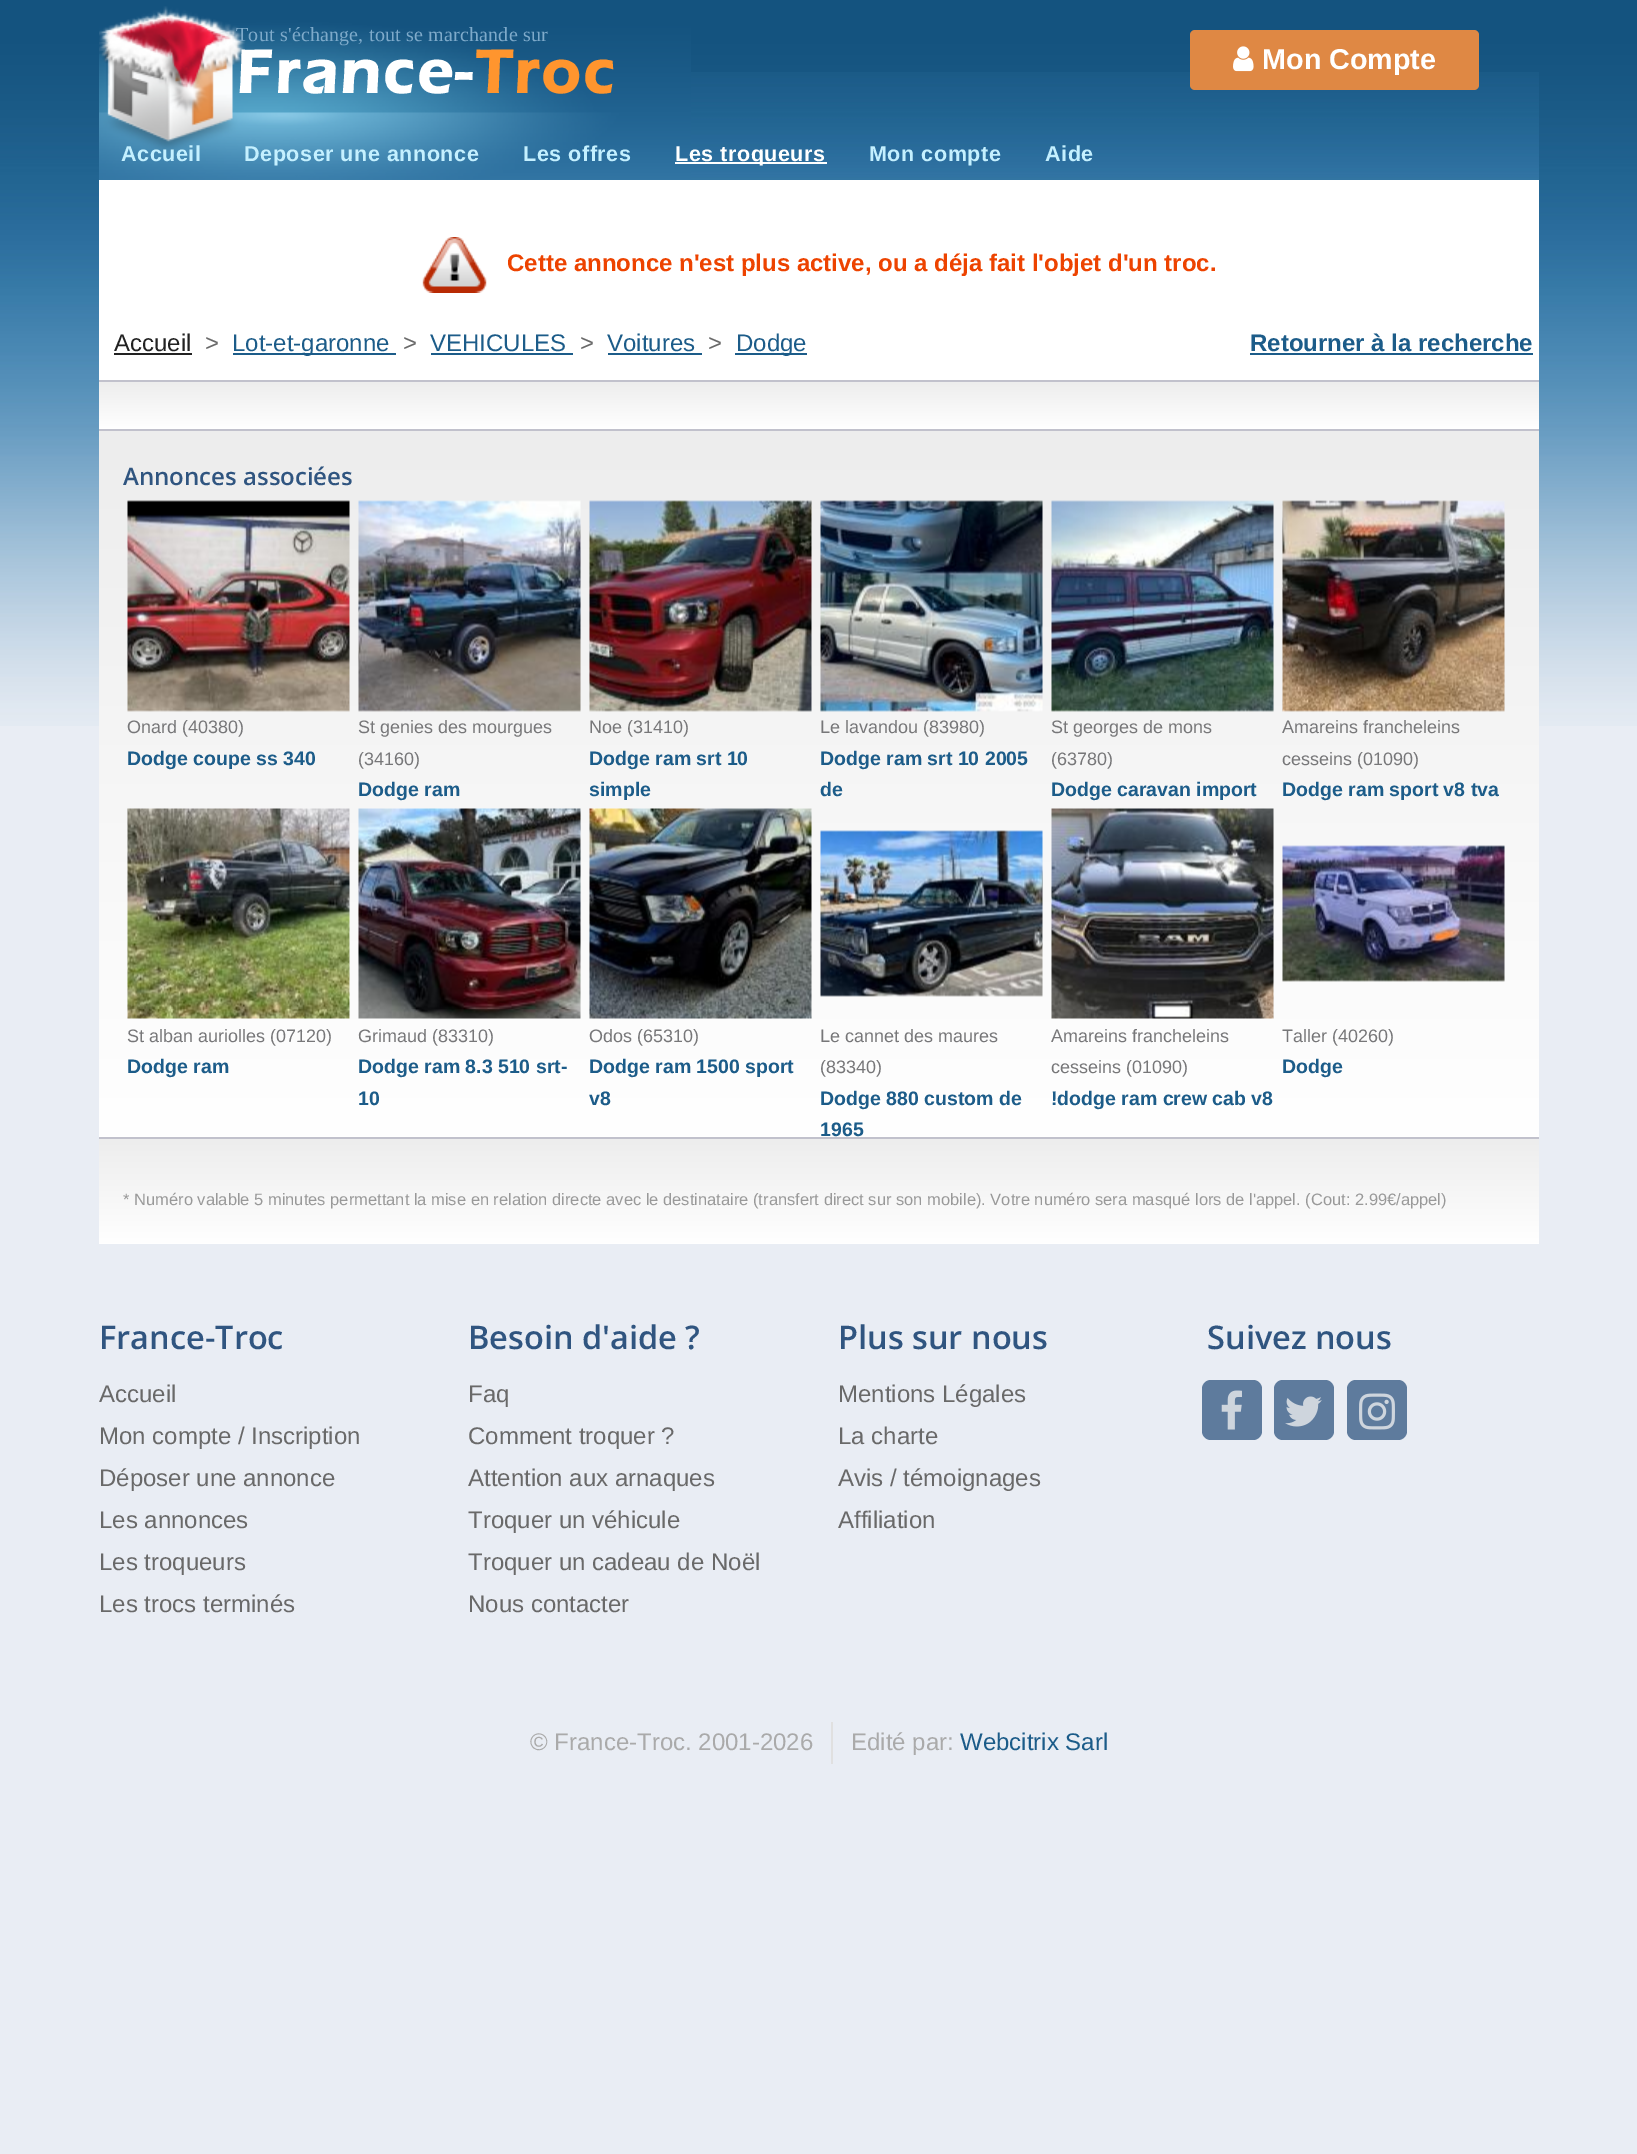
%!PS
<< /PageSize [1637 2154] >> setpagedevice
/rgb { 3 { 255 div 3 1 roll } repeat setrgbcolor } def
/font { [ exch dup neg 0 0 3 -1 roll 0 0 ] selectfont } def
/roundrect { 5 dict begin { /r /h /w /y /x } { exch def } forall
  x r add y moveto x w add y 2 copy h add r arct x w add y h add x 1 index r arct
  x y h add x y r arct x y 2 copy exch w add exch r arct closepath end } def
/picture { 5 dict begin { /h /w /y /x /name } { exch def } forall
  gsave x y translate w h scale
  w h 8 [w 0 0 h 0 0] name (r) file false 3 colorimage grestore end } def
0 2154 translate 1 -1 scale
4 setmiterlimit
233 237 244 rgb
0 0 1637 2154 rectfill
(img/1.rgb) 0 0 1637 726 picture
(img/2.rgb) 691 72 848 108 picture
(img/3.rgb) 99 6 592 174 picture
223 136 68 rgb
1190 30 289 60 5 roundrect fill
(img/4.rgb) 1233 46 21 26 picture
255 255 255 rgb
675 162 152 2 rectfill
99 180 1440 200 rectfill
(img/5.rgb) 422 237 65 56 picture
[
  [114 353 78 2 34 34 34]
  [233 353 163 2 28 92 137]
  [431 353 142 2 28 92 137]
  [608 353 94 2 28 92 137]
  [735 353 72 2 28 92 137]
  [1250 353 283 2 28 92 137]
] { aload pop rgb rectfill } forall
gsave 99 382 moveto 1539 382 lineto 1539 429 lineto 99 429 lineto closepath clip newpath
<< /ShadingType 2 /ColorSpace /DeviceRGB /Coords [819 381 819 429] /Extend [true true] /Function << /FunctionType 2 /Domain [0 1] /C0 [0.929 0.929 0.929] /C1 [1 1 1] /N 1 >> >> shfill grestore
193 193 204 rgb
99 380 1440 2 rectfill
gsave 99 431 moveto 1539 431 lineto 1539 1137 lineto 99 1137 lineto closepath clip newpath
<< /ShadingType 2 /ColorSpace /DeviceRGB /Coords [819 430 819 1137] /Extend [true true] /Function << /FunctionType 2 /Domain [0 1] /C0 [0.929 0.929 0.929] /C1 [1 1 1] /N 1 >> >> shfill grestore
99 429 1440 2 rectfill
(img/6.rgb) 127 500 223 212 picture
(img/7.rgb) 358 500 223 212 picture
(img/8.rgb) 589 500 223 212 picture
(img/9.rgb) 820 500 223 212 picture
(img/10.rgb) 1051 500 223 212 picture
(img/11.rgb) 1282 500 223 212 picture
(img/12.rgb) 127 808 223 211 picture
(img/13.rgb) 358 808 223 211 picture
(img/14.rgb) 589 808 223 211 picture
(img/15.rgb) 820 830 223 167 picture
(img/16.rgb) 1051 808 223 211 picture
(img/17.rgb) 1282 845 223 137 picture
gsave 99 1139 moveto 1539 1139 lineto 1539 1244 lineto 99 1244 lineto closepath clip newpath
<< /ShadingType 2 /ColorSpace /DeviceRGB /Coords [819 1139 819 1244] /Extend [true true] /Function << /FunctionType 2 /Domain [0 1] /C0 [0.929 0.929 0.929] /C1 [1 1 1] /N 1 >> >> shfill grestore
99 1137 1440 2 rectfill
94 123 157 rgb
1202 1380 60 60 9 roundrect fill
(img/18.rgb) 1221 1390 21 40 picture
1274 1380 60 60 9 roundrect fill
(img/19.rgb) 1285 1396 37 31 picture
1347 1380 60 60 9 roundrect fill
(img/20.rgb) 1359 1393 36 37 picture
224 224 224 rgb
831 1722 2 42 rectfill
/LiberationSerif-Regular 20 font
126 170 202 rgb
236 41 moveto 0.2 0 (Tout s'échange, tout se marchande sur) ashow
/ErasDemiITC-Bold 62.5 font
255 255 255 rgb
236 93 moveto 3 0 (France-) ashow
255 149 46 rgb
475 93 moveto 3 0 (Troc) ashow
/LiberationSans-Bold 28.75 font
255 255 255 rgb
1262 69 moveto (Mon Compte) show
/LiberationSans-Bold 21.6 font
196 240 255 rgb
121 161 moveto 0.5 0 (Accueil) ashow
244 161 moveto 0.5 0 (Deposer une annonce) ashow
523 161 moveto 0.5 0 (Les offres) ashow
255 255 255 rgb
675 161 moveto 0.5 0 (Les troqueurs) ashow
196 240 255 rgb
869 161 moveto 0.5 0 (Mon compte) ashow
1045 161 moveto 0.5 0 (Aide) ashow
/LiberationSans-Bold 24 font
237 67 0 rgb
507 271 moveto (Cette annonce n'est plus active, ou a déja fait l'objet d'un troc.) show
/LiberationSans-Regular 24 font
34 34 34 rgb
114 351 moveto (Accueil) show
105 105 105 rgb
205 351 moveto (>) show
28 92 137 rgb
232 351 moveto (Lot-et-garonne) show
105 105 105 rgb
403 351 moveto (>) show
28 92 137 rgb
430 351 moveto (VEHICULES) show
105 105 105 rgb
580 351 moveto (>) show
28 92 137 rgb
607 351 moveto (Voitures) show
105 105 105 rgb
708 351 moveto (>) show
28 92 137 rgb
736 351 moveto (Dodge) show
/LiberationSans-Bold 24 font
1250 351 moveto (Retourner à la recherche) show
/OpenSans-SemiBold 24 font
48 85 128 rgb
123 485 moveto (Annonces associées) show
/LiberationSans-Regular 18 font
119 119 121 rgb
127 733 moveto (Onard \(40380\)) show
/LiberationSans-Bold 19.5 font
28 92 137 rgb
127 765 moveto (Dodge coupe ss 340) show
/LiberationSans-Regular 18 font
119 119 121 rgb
358 733 moveto (St genies des mourgues) show
358 765 moveto (\(34160\)) show
/LiberationSans-Bold 19.5 font
28 92 137 rgb
358 796 moveto (Dodge ram) show
/LiberationSans-Regular 18 font
119 119 121 rgb
589 733 moveto (Noe \(31410\)) show
/LiberationSans-Bold 19.5 font
28 92 137 rgb
589 765 moveto (Dodge ram srt 10) show
589 796 moveto (simple) show
/LiberationSans-Regular 18 font
119 119 121 rgb
820 733 moveto (Le lavandou \(83980\)) show
/LiberationSans-Bold 19.5 font
28 92 137 rgb
820 765 moveto (Dodge ram srt 10 2005) show
820 796 moveto (de) show
/LiberationSans-Regular 18 font
119 119 121 rgb
1051 733 moveto (St georges de mons) show
1051 765 moveto (\(63780\)) show
/LiberationSans-Bold 19.5 font
28 92 137 rgb
1051 796 moveto (Dodge caravan import) show
/LiberationSans-Regular 18 font
119 119 121 rgb
1282 733 moveto (Amareins francheleins) show
1282 765 moveto (cesseins \(01090\)) show
/LiberationSans-Bold 19.5 font
28 92 137 rgb
1282 796 moveto (Dodge ram sport v8 tva) show
/LiberationSans-Regular 18 font
119 119 121 rgb
127 1042 moveto (St alban auriolles \(07120\)) show
/LiberationSans-Bold 19.5 font
28 92 137 rgb
127 1073 moveto (Dodge ram) show
/LiberationSans-Regular 18 font
119 119 121 rgb
358 1042 moveto (Grimaud \(83310\)) show
/LiberationSans-Bold 19.5 font
28 92 137 rgb
358 1073 moveto (Dodge ram 8.3 510 srt-) show
358 1105 moveto (10) show
/LiberationSans-Regular 18 font
119 119 121 rgb
589 1042 moveto (Odos \(65310\)) show
/LiberationSans-Bold 19.5 font
28 92 137 rgb
589 1073 moveto (Dodge ram 1500 sport) show
589 1105 moveto (v8) show
/LiberationSans-Regular 18 font
119 119 121 rgb
820 1042 moveto (Le cannet des maures) show
820 1073 moveto (\(83340\)) show
/LiberationSans-Bold 19.5 font
28 92 137 rgb
820 1105 moveto (Dodge 880 custom de) show
820 1136 moveto (1965) show
/LiberationSans-Regular 18 font
119 119 121 rgb
1051 1042 moveto (Amareins francheleins) show
1051 1073 moveto (cesseins \(01090\)) show
/LiberationSans-Bold 19.5 font
28 92 137 rgb
1051 1105 moveto (!dodge ram crew cab v8) show
/LiberationSans-Regular 18 font
119 119 121 rgb
1282 1042 moveto (Taller \(40260\)) show
/LiberationSans-Bold 19.5 font
28 92 137 rgb
1282 1073 moveto (Dodge) show
/LiberationSans-Regular 16.5 font
153 153 153 rgb
123 1205 moveto (* Numéro valable 5 minutes permettant la mise en relation directe avec le destinataire \(transfert direct sur son mobile\). Votre numéro sera masqué lors de l'appel. \(Cout: 2.99€/appel\)) show
/OpenSans-SemiBold 32.5 font
48 85 128 rgb
99 1349 moveto (France-Troc) show
/LiberationSans-Regular 24 font
105 105 105 rgb
[
  [(Accueil) 99 1402]
  [(Mon compte / Inscription) 99 1444]
  [(Déposer une annonce) 99 1486]
  [(Les annonces) 99 1528]
  [(Les troqueurs) 99 1570]
  [(Les trocs terminés) 99 1612]
] { aload pop moveto show } forall
/OpenSans-SemiBold 32.5 font
48 85 128 rgb
468 1349 moveto (Besoin d'aide ?) show
/LiberationSans-Regular 24 font
105 105 105 rgb
[
  [(Faq) 468 1402]
  [(Comment troquer ?) 468 1444]
  [(Attention aux arnaques) 468 1486]
  [(Troquer un véhicule) 468 1528]
  [(Troquer un cadeau de Noël) 468 1570]
  [(Nous contacter) 468 1612]
] { aload pop moveto show } forall
/OpenSans-SemiBold 32.5 font
48 85 128 rgb
838 1349 moveto (Plus sur nous) show
/LiberationSans-Regular 24 font
105 105 105 rgb
[
  [(Mentions Légales) 838 1402]
  [(La charte) 838 1444]
  [(Avis / témoignages) 838 1486]
  [(Affiliation) 838 1528]
] { aload pop moveto show } forall
/OpenSans-SemiBold 32.5 font
48 85 128 rgb
1207 1349 moveto (Suivez nous) show
/LiberationSans-Regular 24 font
170 170 170 rgb
530 1750 moveto (© France-Troc. 2001-2026) show
851 1750 moveto (Edité par:) show
28 92 137 rgb
960 1750 moveto (Webcitrix Sarl) show
showpage
